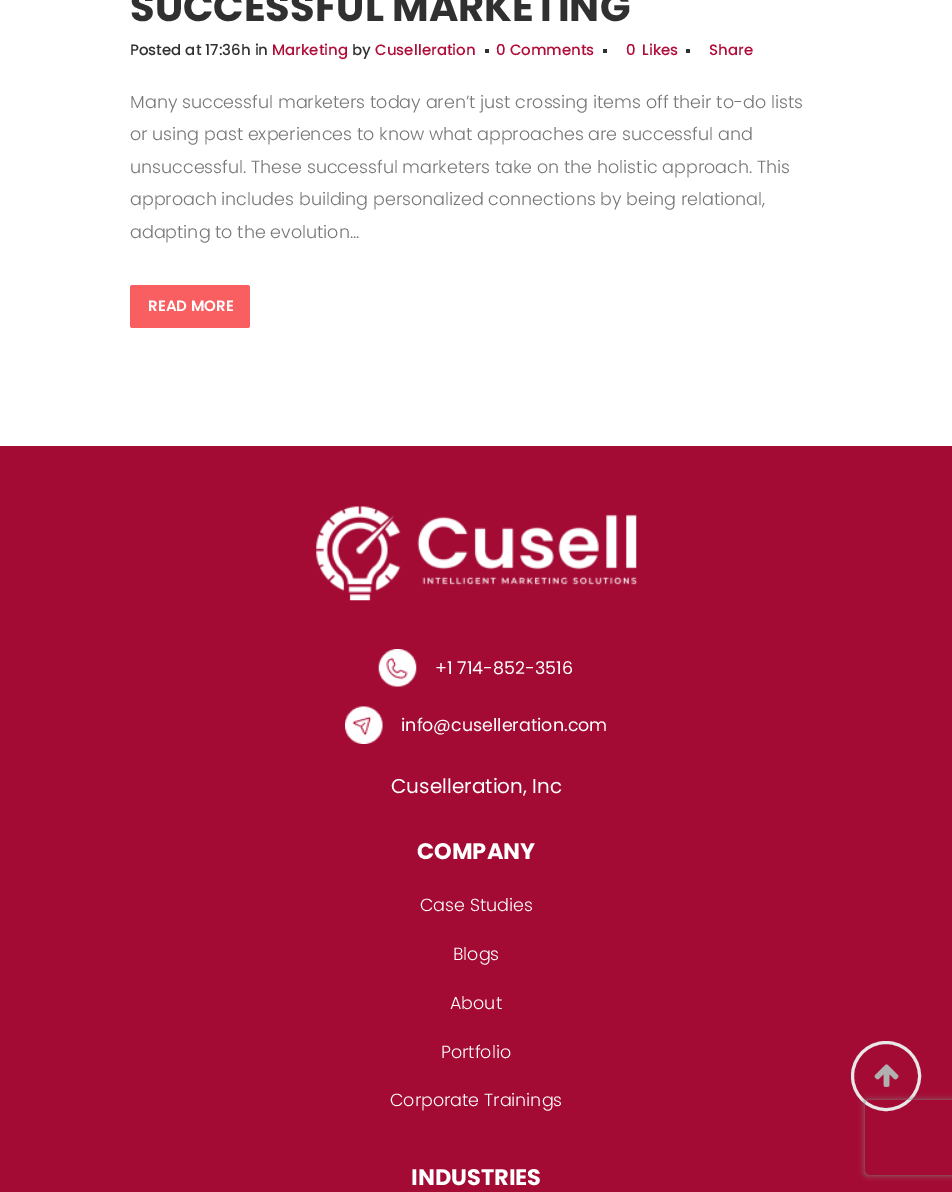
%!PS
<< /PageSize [952 1192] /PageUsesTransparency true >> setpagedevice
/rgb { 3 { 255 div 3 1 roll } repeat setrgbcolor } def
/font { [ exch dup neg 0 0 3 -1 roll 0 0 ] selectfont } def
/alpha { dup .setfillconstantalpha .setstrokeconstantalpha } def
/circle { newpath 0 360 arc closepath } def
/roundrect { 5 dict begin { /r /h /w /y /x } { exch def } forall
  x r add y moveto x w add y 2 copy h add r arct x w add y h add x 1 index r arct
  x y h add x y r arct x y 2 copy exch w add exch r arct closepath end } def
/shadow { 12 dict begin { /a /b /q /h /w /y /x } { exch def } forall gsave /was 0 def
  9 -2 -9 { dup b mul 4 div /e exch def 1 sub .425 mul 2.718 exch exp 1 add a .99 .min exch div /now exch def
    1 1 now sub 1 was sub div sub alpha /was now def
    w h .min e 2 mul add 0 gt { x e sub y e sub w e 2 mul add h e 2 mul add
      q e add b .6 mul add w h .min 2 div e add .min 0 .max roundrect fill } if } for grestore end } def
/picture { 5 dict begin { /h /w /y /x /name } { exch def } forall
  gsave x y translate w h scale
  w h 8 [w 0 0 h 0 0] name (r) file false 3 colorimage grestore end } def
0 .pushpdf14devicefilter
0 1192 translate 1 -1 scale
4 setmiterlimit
255 255 255 rgb
0 0 952 1192 rectfill
[
  [485 49 4 4 48 48 48]
  [603 49 4 4 48 48 48]
  [686 49 4 4 48 48 48]
] { aload pop rgb rectfill } forall
249 94 97 rgb
130 285 120 43 2.5 roundrect fill
163 11 52 rgb
0 446 952 746 rectfill
(img/1.rgb) 316 506 321 95 picture
(img/2.rgb) 378 649 39 38 picture
(img/3.rgb) 345 706 38 38 picture
232 232 232 rgb
3 setlinewidth
886 1076 33.5 circle stroke
(img/4.rgb) 874 1064 25 23 picture
gsave
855 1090 moveto 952 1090 lineto 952 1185 lineto 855 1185 lineto closepath 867.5 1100 moveto 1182.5 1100 lineto 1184 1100 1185 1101 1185 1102.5 curveto 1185 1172.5 lineto 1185 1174 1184 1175 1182.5 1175 curveto 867.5 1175 lineto 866 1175 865 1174 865 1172.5 curveto 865 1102.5 lineto 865 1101 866 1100 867.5 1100 curveto closepath eoclip newpath
128 128 128 rgb
865 1100 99 75 2.5 3 1 shadow
grestore
/Poppins-Bold 40 font
48 48 48 rgb
130 21 moveto (SUCCESSFUL MARKETING) show
/Poppins-Medium 15 font
130 55 moveto (Posted at 17:36h in) show
175 12 55 rgb
272 55 moveto (Marketing) show
48 48 48 rgb
352 55 moveto (by) show
175 12 55 rgb
[
  [(Cuselleration) 375 55]
  [(0 Comments) 496 55]
  [(0) 626 55]
  [(Likes) 642 55]
  [(Share) 709 55]
] { aload pop moveto show } forall
/Poppins-Light 17.5 font
119 119 119 rgb
[
  [(Many successful marketers today aren’t just crossing items off their to-do lists) 130 108]
  [(or using past experiences to know what approaches are successful and) 130 140]
  [(unsuccessful. These successful marketers take on the holistic approach. This) 130 173]
  [(approach includes building personalized connections by being relational,) 130 205]
  [(adapting to the evolution...) 130 238]
] { aload pop moveto show } forall
/Poppins-SemiBold 15 font
255 255 255 rgb
148 311 moveto (READ MORE) show
/Poppins-Regular 17.5 font
435 674 moveto (+1 714-852-3516) show
401 731 moveto (info@cuselleration.com) show
/Poppins-Regular 20 font
391 793 moveto (Cuselleration, Inc) show
/Poppins-Bold 22.5 font
417 859 moveto (COMPANY) show
/Poppins-Light 17.5 font
[
  [(Case Studies) 420 911]
  [(Blogs) 453 960]
  [(About) 450 1009]
  [(Portfolio) 441 1058]
  [(Corporate Trainings) 390 1106]
] { aload pop moveto show } forall
/Poppins-Bold 22.5 font
411 1185 moveto (INDUSTRIES) show
.poppdf14devicefilter showpage
